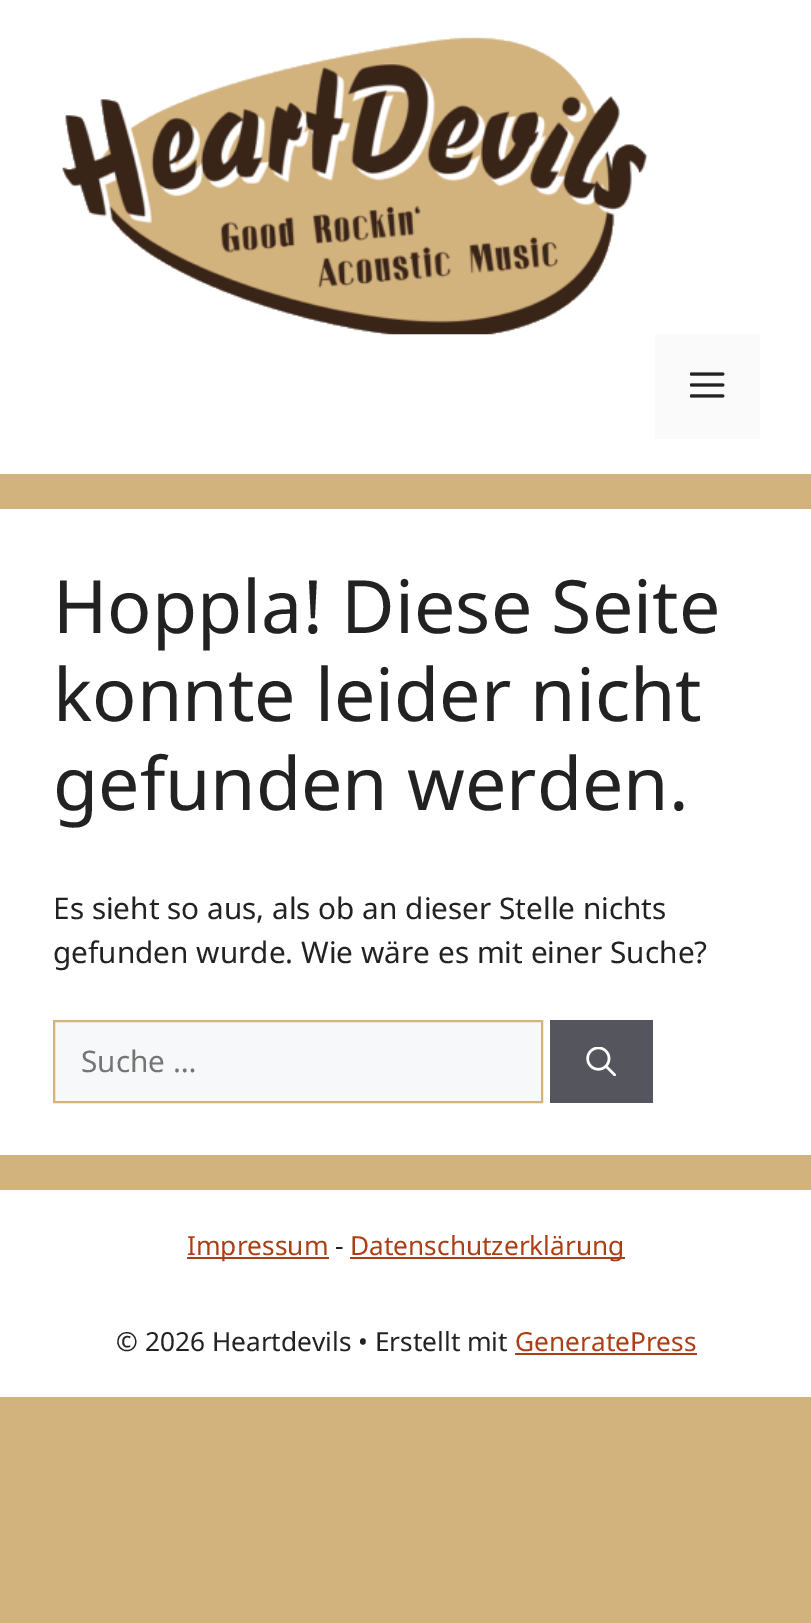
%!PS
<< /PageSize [811 1623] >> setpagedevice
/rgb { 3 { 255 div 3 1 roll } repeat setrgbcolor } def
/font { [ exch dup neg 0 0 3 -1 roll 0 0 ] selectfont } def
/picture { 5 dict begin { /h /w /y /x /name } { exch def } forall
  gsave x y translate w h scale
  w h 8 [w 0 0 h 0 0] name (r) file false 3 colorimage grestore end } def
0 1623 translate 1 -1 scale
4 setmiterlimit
210 178 125 rgb
0 0 811 1623 rectfill
255 255 255 rgb
0 0 811 474 rectfill
(img/1.rgb) 62 37 586 298 picture
250 250 250 rgb
655 334 105 105 rectfill
(img/2.rgb) 690 372 35 26 picture
255 255 255 rgb
0 509 811 646 rectfill
247 248 249 rgb
54 1021 moveto 542 1021 lineto 542 1102 lineto 54 1102 lineto closepath gsave fill grestore
210 178 125 rgb
2 setlinewidth
stroke
85 85 94 rgb
550 1020 103 83 rectfill
(img/3.rgb) 586 1047 30 29 picture
[
  [0 1190 811 207 255 255 255]
  [187 1257 142 2 172 62 20]
  [350 1257 275 2 172 62 20]
  [515 1353 182 2 172 62 20]
] { aload pop rgb rectfill } forall
/NotoSans-Regular 73.5 font
34 34 34 rgb
[
  [(Hoppla! Diese Seite) 53 633]
  [(konnte leider nicht) 53 721]
  [(gefunden werden.) 53 810]
] { aload pop moveto show } forall
/NotoSans-Regular 29.75 font
53 919 moveto (Es sieht so aus, als ob an dieser Stelle nichts) show
53 963 moveto (gefunden wurde. Wie wäre es mit einer Suche?) show
117 117 117 rgb
81 1072 moveto (Suche …) show
/NotoSans-Regular 26.25 font
172 62 20 rgb
187 1255 moveto (Impressum) show
34 34 34 rgb
335 1255 moveto (-) show
172 62 20 rgb
350 1255 moveto (Datenschutzerklärung) show
34 34 34 rgb
116 1351 moveto (© 2026 Heartdevils • Erstellt mit) show
172 62 20 rgb
515 1351 moveto (GeneratePress) show
showpage
